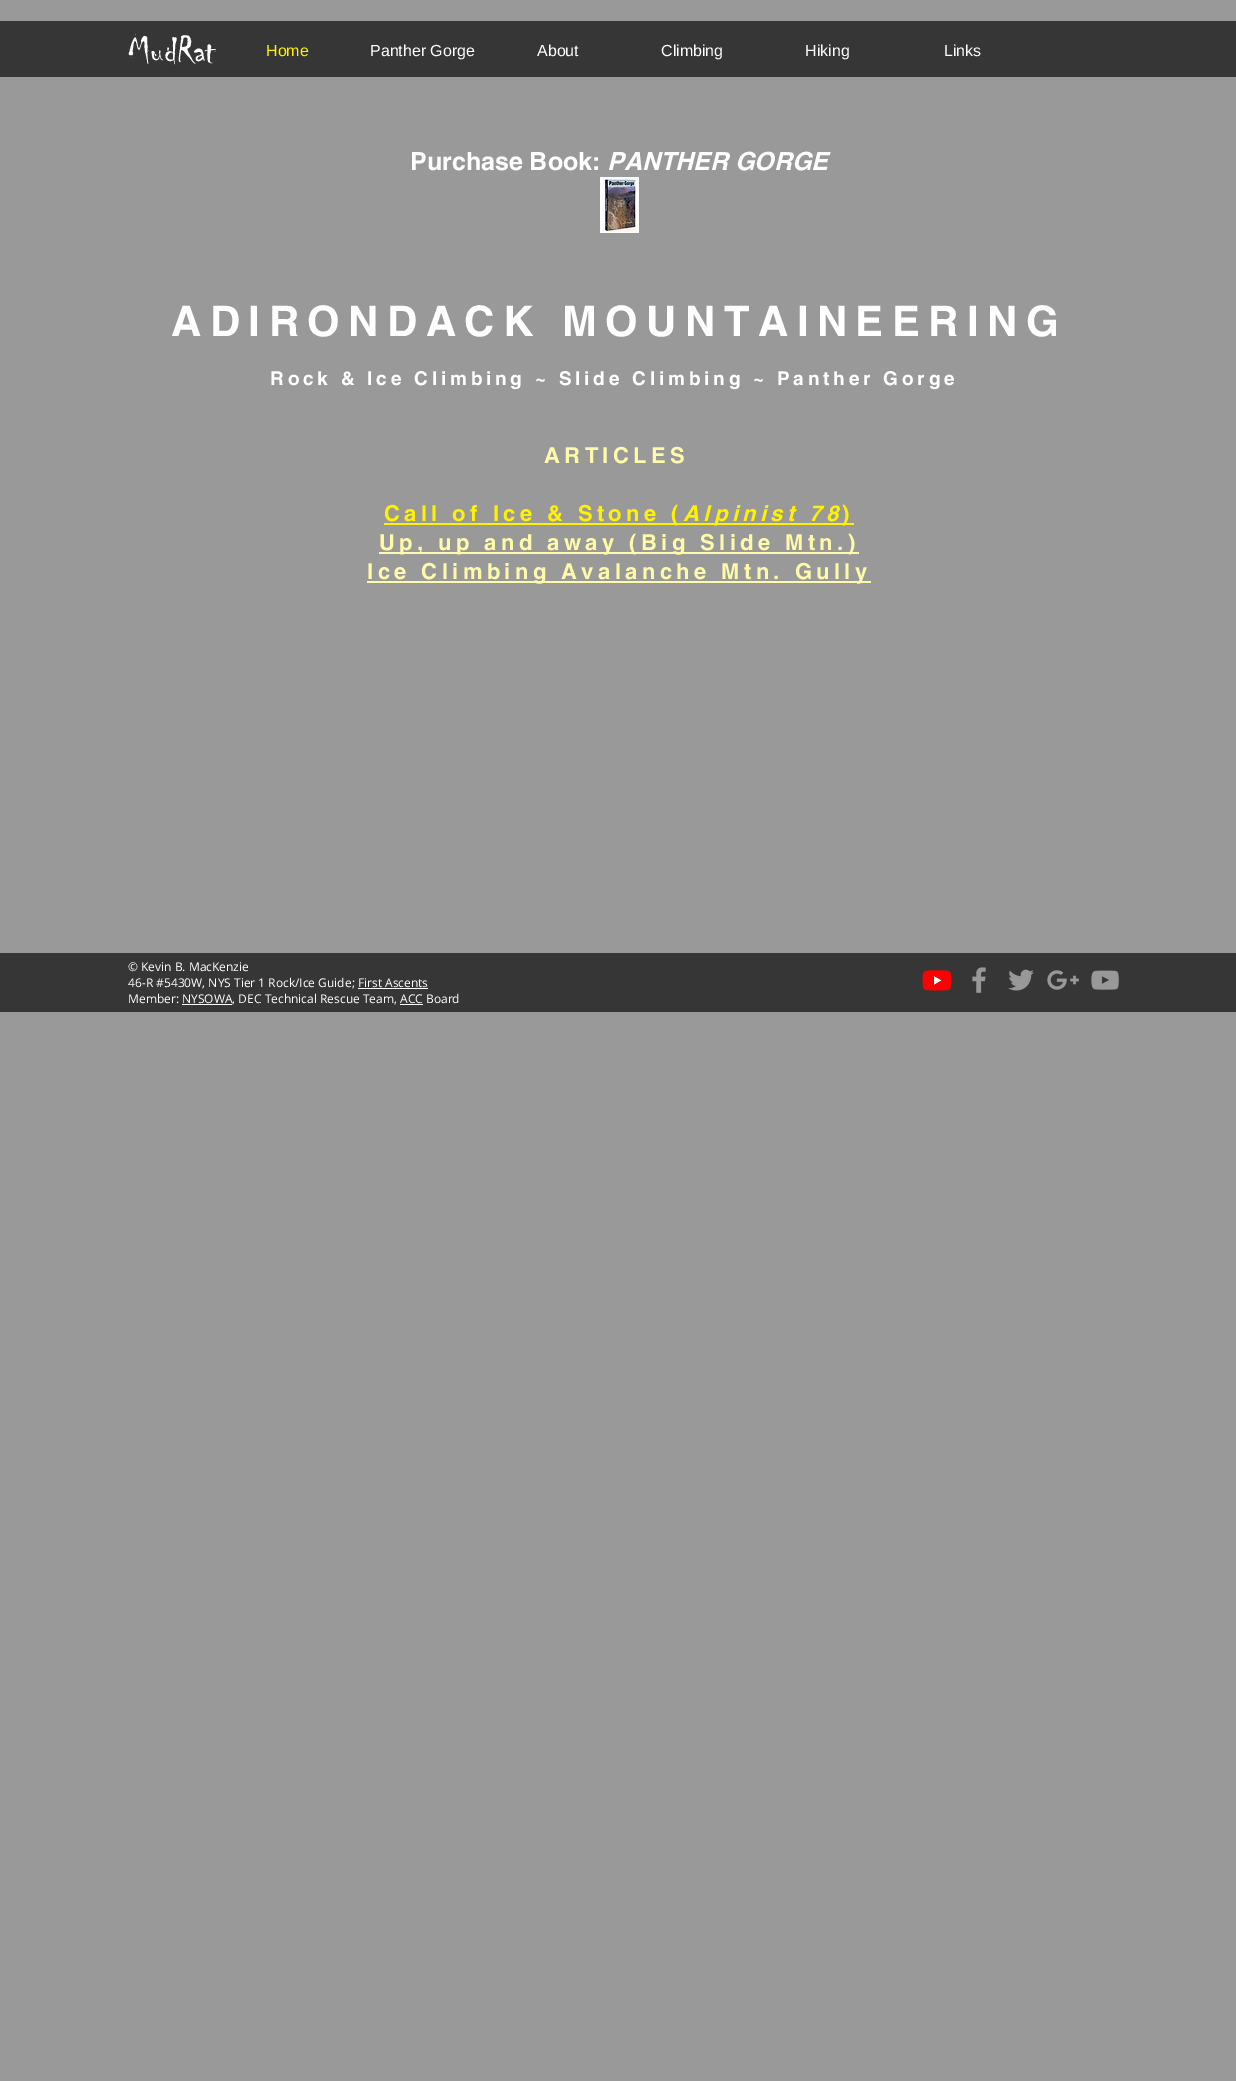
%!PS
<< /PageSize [1236 2081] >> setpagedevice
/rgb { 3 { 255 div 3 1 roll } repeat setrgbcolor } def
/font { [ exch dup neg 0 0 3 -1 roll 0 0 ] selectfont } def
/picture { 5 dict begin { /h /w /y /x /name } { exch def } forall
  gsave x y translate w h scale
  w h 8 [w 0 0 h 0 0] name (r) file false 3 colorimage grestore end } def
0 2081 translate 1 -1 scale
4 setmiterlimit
153 153 153 rgb
0 0 1236 2081 rectfill
54 54 54 rgb
0 21 1236 56 rectfill
255 255 255 rgb
600 177 2 56 rectfill
(img/1.rgb) 602 177 37 56 picture
[
  [384 523 470 2 255 242 0]
  [379 552 480 2 255 250 170]
  [367 581 504 2 255 250 170]
  [0 953 1236 59 54 54 54]
  [358 988 70 1 255 255 255]
  [182 1004 50 1 255 255 255]
  [400 1004 23 1 255 255 255]
] { aload pop rgb rectfill } forall
(img/2.rgb) 922 970 30 21 picture
(img/3.rgb) 972 967 14 26 picture
(img/4.rgb) 1008 969 26 22 picture
(img/5.rgb) 1047 970 32 20 picture
(img/6.rgb) 1091 970 28 20 picture
/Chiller-Regular 39 font
128 62 moveto (MudRat) show
/LiberationSans-Regular 16 font
255 242 0 rgb
266 56 moveto (Home) show
255 255 255 rgb
[
  [(Panther Gorge) 370 56]
  [(About) 537 56]
  [(Climbing) 661 56]
  [(Hiking) 805 56]
  [(Links) 944 56]
] { aload pop moveto show } forall
/helvetica-Bold 25 font
410 170 moveto (Purchase Book:) show
/helvetica-BoldItalic 25 font
607 170 moveto (PANTHER GORGE) show
/helvetica-Bold 42 font
171 336 moveto 8.4 0 (ADIRONDACK MOUNTAINEERING) ashow
/helvetica-Bold 19 font
270 385 moveto 3.8 0 (Rock & Ice Climbing ~ Slide Climbing ~ Panther Gorge) ashow
/helvetica-Bold 22 font
255 250 170 rgb
544 463 moveto 4.4 0 (ARTICLES) ashow
255 242 0 rgb
384 521 moveto 4.4 0 (Call of Ice & Stone \() ashow
/helvetica-BoldItalic 22 font
683 521 moveto 4.4 0 (Alpinist 78) ashow
/helvetica-Bold 22 font
842 521 moveto 4.4 0 (\)) ashow
255 250 170 rgb
379 550 moveto 4.4 0 (Up, up and away \(Big Slide Mtn.\)) ashow
367 579 moveto 4.4 0 (Ice Climbing Avalanche Mtn. Gully) ashow
/OpenSans-Regular 12 font
255 255 255 rgb
[
  [(© Kevin B. MacKenzie) 128 971]
  [(46-R #5430W, NYS Tier 1 Rock/Ice Guide; First Ascents) 128 987]
  [(Member: NYSOWA, DEC Technical Rescue Team, ACC Board) 128 1003]
] { aload pop moveto show } forall
showpage
